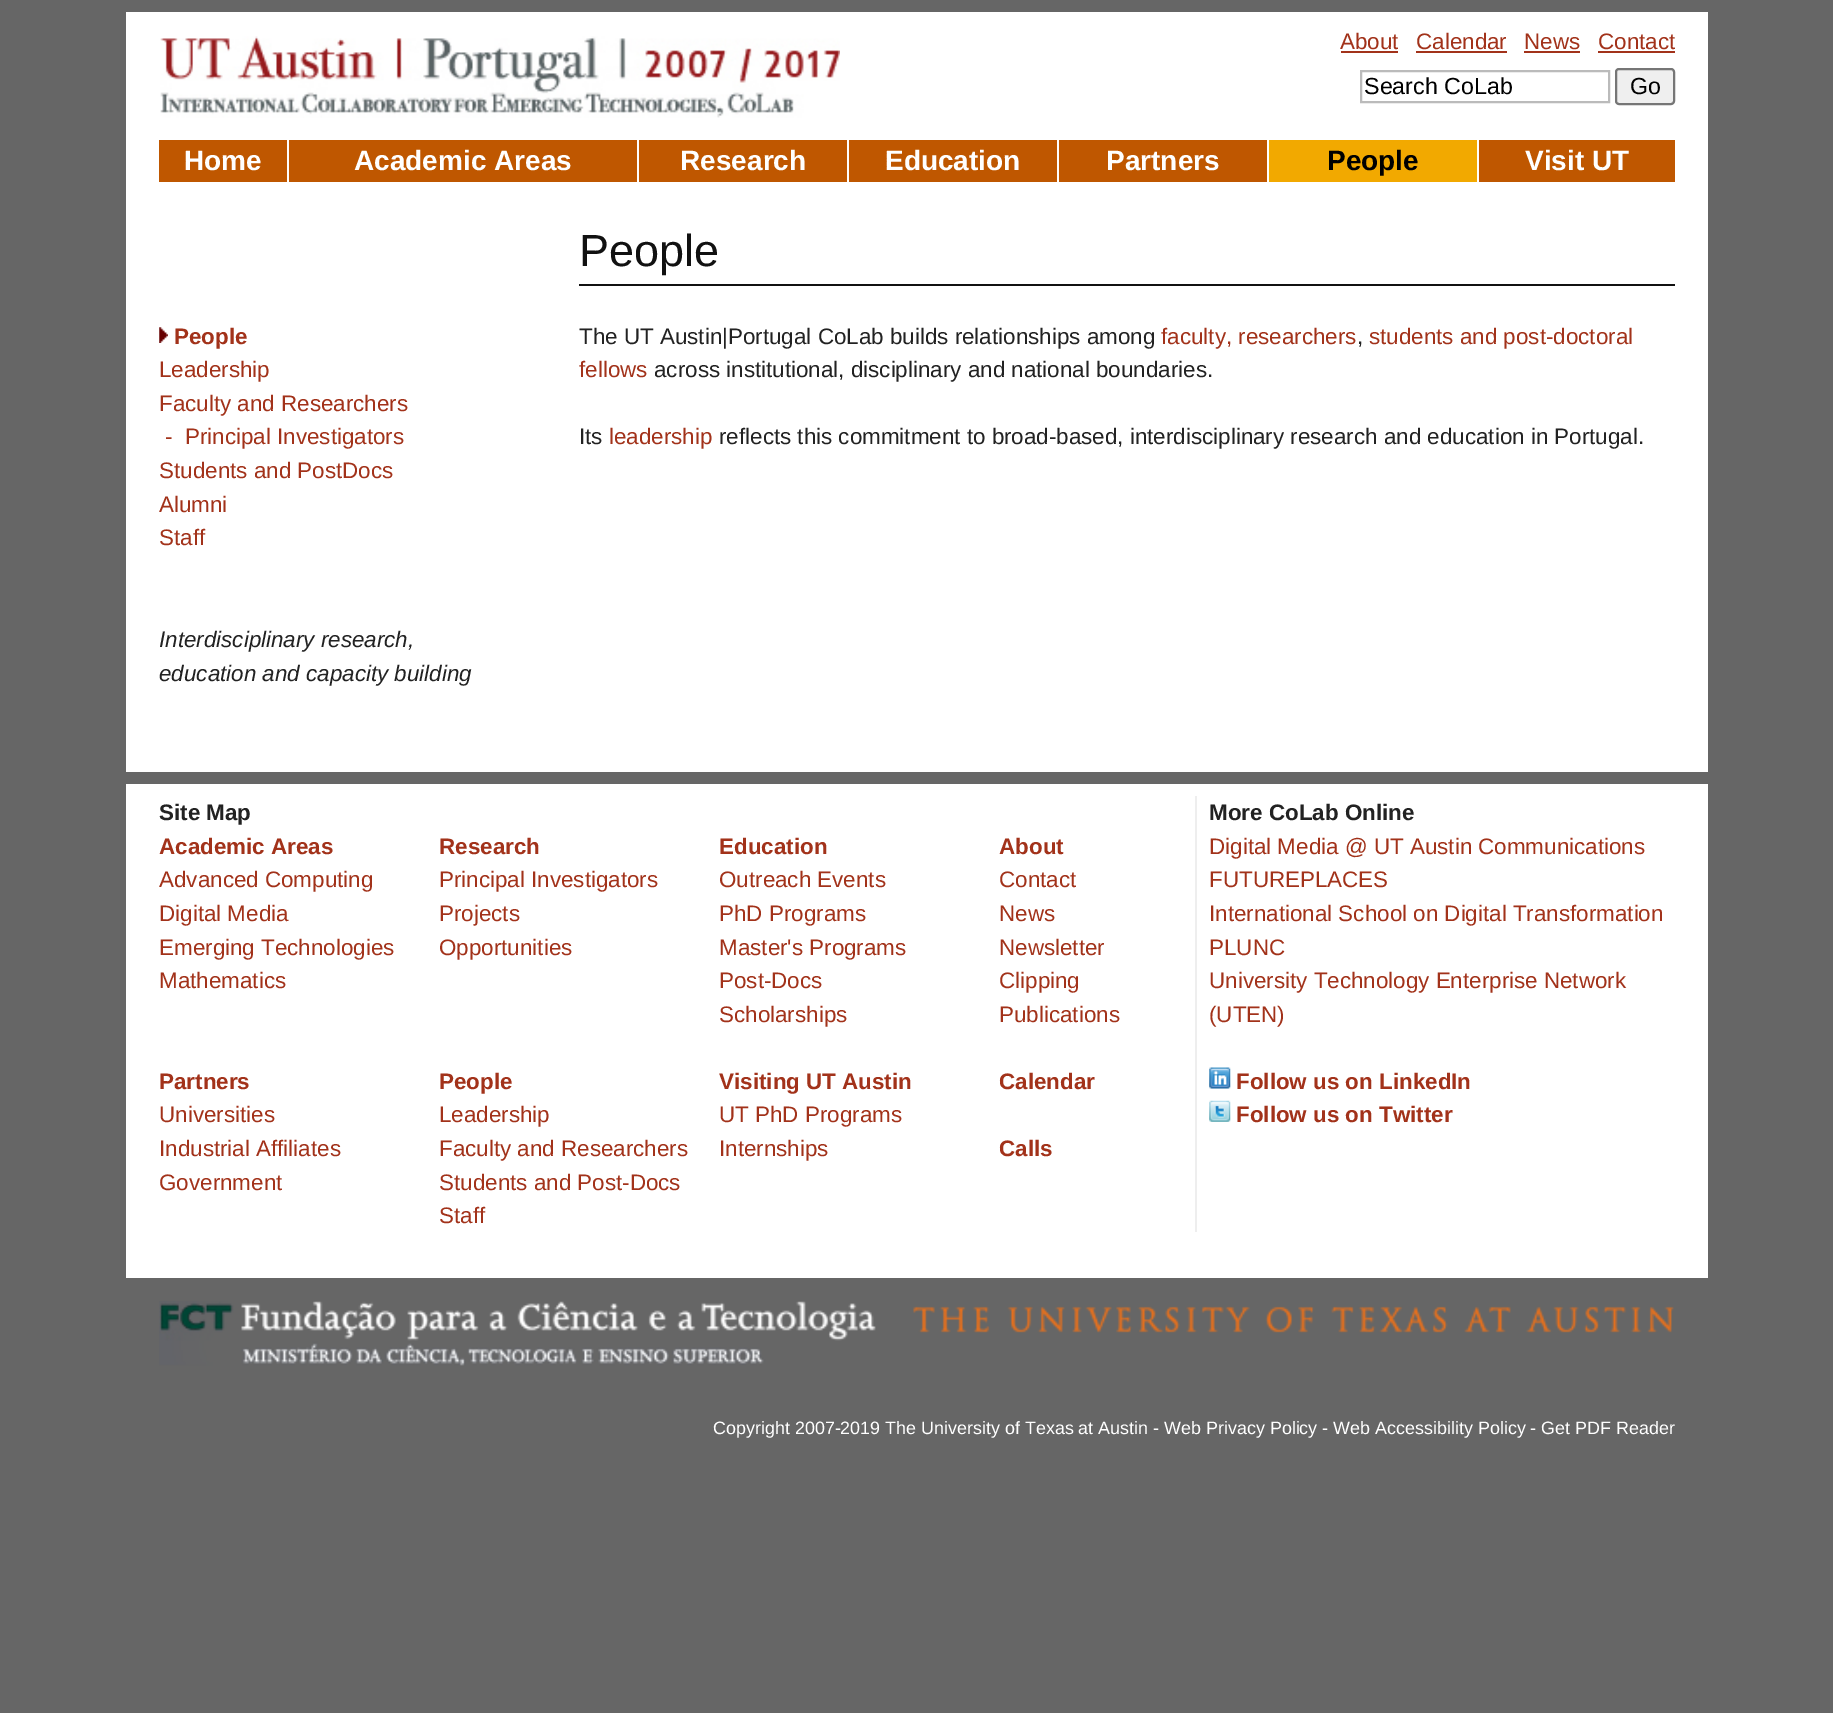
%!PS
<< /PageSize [1833 1713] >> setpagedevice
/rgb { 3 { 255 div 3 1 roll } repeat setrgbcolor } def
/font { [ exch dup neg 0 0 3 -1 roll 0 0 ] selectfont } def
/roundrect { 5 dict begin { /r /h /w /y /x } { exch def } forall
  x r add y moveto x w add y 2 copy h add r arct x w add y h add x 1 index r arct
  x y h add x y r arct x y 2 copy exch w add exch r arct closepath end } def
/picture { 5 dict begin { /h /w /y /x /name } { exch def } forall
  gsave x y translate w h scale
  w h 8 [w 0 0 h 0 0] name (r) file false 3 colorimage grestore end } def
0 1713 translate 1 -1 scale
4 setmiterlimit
102 102 102 rgb
0 0 1833 1713 rectfill
255 255 255 rgb
126 12 1582 760 rectfill
(img/1.rgb) 160 36 680 82 picture
[
  [1341 51 57 2 162 50 26]
  [1416 51 91 2 162 50 26]
  [1524 51 56 2 162 50 26]
  [1598 51 77 2 162 50 26]
] { aload pop rgb rectfill } forall
187 187 187 rgb
2 setlinewidth
1361 71 248 31 rectstroke
239 239 239 rgb
1616 69 58 35 3 roundrect gsave fill grestore
118 118 118 rgb
stroke
[
  [159 140 128 42 191 87 0]
  [289 140 348 42 191 87 0]
  [639 140 208 42 191 87 0]
  [849 140 208 42 191 87 0]
  [1059 140 208 42 191 87 0]
  [1269 140 208 42 242 169 0]
  [1479 140 196 42 191 87 0]
  [579 284 1096 2 17 17 17]
] { aload pop rgb rectfill } forall
(img/2.rgb) 159 327 9 16 picture
255 255 255 rgb
126 784 1582 494 rectfill
238 238 238 rgb
1195 796 2 436 rectfill
(img/3.rgb) 1209 1067 22 22 picture
(img/4.rgb) 1209 1100 22 22 picture
(img/5.rgb) 159 1301 717 65 picture
(img/6.rgb) 913 1306 761 27 picture
/LiberationSans-Regular 22.4 font
162 50 26 rgb
[
  [(About) 1340 49]
  [(Calendar) 1416 49]
  [(News) 1524 49]
  [(Contact) 1598 49]
] { aload pop moveto show } forall
/LiberationSans-Regular 23.25 font
0 0 0 rgb
1364 94 moveto (Search CoLab) show
1630 94 moveto (Go) show
/LiberationSans-Bold 28 font
255 255 255 rgb
[
  [(Home) 184 170]
  [(Academic Areas) 354 170]
  [(Research) 680 170]
  [(Education) 885 170]
  [(Partners) 1106 170]
] { aload pop moveto show } forall
0 0 0 rgb
1327 170 moveto (People) show
255 255 255 rgb
1525 170 moveto (Visit UT) show
/LiberationSans-Regular 45 font
17 17 17 rgb
579 266 moveto (People) show
/LiberationSans-Bold 22.4 font
162 50 26 rgb
174 344 moveto (People) show
/LiberationSans-Regular 22.4 font
[
  [(Leadership) 159 377]
  [(Faculty and Researchers) 159 411]
  [(-  Principal Investigators) 165 444]
  [(Students and PostDocs) 159 478]
  [(Alumni) 159 512]
  [(Staff) 159 545]
] { aload pop moveto show } forall
/LiberationSans-Italic 22.4 font
34 34 34 rgb
159 647 moveto (Interdisciplinary research,) show
159 681 moveto (education and capacity building) show
/LiberationSans-Regular 22.4 font
579 344 moveto (The UT Austin|Portugal CoLab builds relationships among) show
162 50 26 rgb
1161 344 moveto (faculty, researchers) show
34 34 34 rgb
1357 344 moveto (,) show
162 50 26 rgb
1369 344 moveto (students and post-doctoral) show
579 377 moveto (fellows) show
34 34 34 rgb
654 377 moveto (across institutional, disciplinary and national boundaries.) show
579 444 moveto (Its) show
162 50 26 rgb
609 444 moveto (leadership) show
34 34 34 rgb
719 444 moveto (reflects this commitment to broad-based, interdisciplinary research and education in Portugal.) show
/LiberationSans-Bold 22.4 font
159 820 moveto (Site Map) show
162 50 26 rgb
159 854 moveto (Academic Areas) show
/LiberationSans-Regular 22.4 font
[
  [(Advanced Computing) 159 887]
  [(Digital Media) 159 921]
  [(Emerging Technologies) 159 955]
  [(Mathematics) 159 988]
] { aload pop moveto show } forall
/LiberationSans-Bold 22.4 font
159 1089 moveto (Partners) show
/LiberationSans-Regular 22.4 font
[
  [(Universities) 159 1122]
  [(Industrial Affiliates) 159 1156]
  [(Government) 159 1190]
] { aload pop moveto show } forall
/LiberationSans-Bold 22.4 font
439 854 moveto (Research) show
/LiberationSans-Regular 22.4 font
[
  [(Principal Investigators) 439 887]
  [(Projects) 439 921]
  [(Opportunities) 439 955]
] { aload pop moveto show } forall
/LiberationSans-Bold 22.4 font
439 1089 moveto (People) show
/LiberationSans-Regular 22.4 font
[
  [(Leadership) 439 1122]
  [(Faculty and Researchers) 439 1156]
  [(Students and Post-Docs) 439 1190]
  [(Staff) 439 1223]
] { aload pop moveto show } forall
/LiberationSans-Bold 22.4 font
719 854 moveto (Education) show
/LiberationSans-Regular 22.4 font
[
  [(Outreach Events) 719 887]
  [(PhD Programs) 719 921]
  [(Master's Programs) 719 955]
  [(Post-Docs) 719 988]
  [(Scholarships) 719 1022]
] { aload pop moveto show } forall
/LiberationSans-Bold 22.4 font
719 1089 moveto (Visiting UT Austin) show
/LiberationSans-Regular 22.4 font
719 1122 moveto (UT PhD Programs) show
719 1156 moveto (Internships) show
/LiberationSans-Bold 22.4 font
999 854 moveto (About) show
/LiberationSans-Regular 22.4 font
[
  [(Contact) 999 887]
  [(News) 999 921]
  [(Newsletter) 999 955]
  [(Clipping) 999 988]
  [(Publications) 999 1022]
] { aload pop moveto show } forall
/LiberationSans-Bold 22.4 font
999 1089 moveto (Calendar) show
999 1156 moveto (Calls) show
34 34 34 rgb
1209 820 moveto (More CoLab Online) show
/LiberationSans-Regular 22.4 font
162 50 26 rgb
[
  [(Digital Media @ UT Austin Communications) 1209 854]
  [(FUTUREPLACES) 1209 887]
  [(International School on Digital Transformation) 1209 921]
  [(PLUNC) 1209 955]
  [(University Technology Enterprise Network) 1209 988]
  [(\(UTEN\)) 1209 1022]
] { aload pop moveto show } forall
/LiberationSans-Bold 22.4 font
1236 1089 moveto (Follow us on LinkedIn) show
1236 1122 moveto (Follow us on Twitter) show
/LiberationSans-Regular 17.92 font
255 255 255 rgb
713 1434 moveto (Copyright 2007-2019 The University of Texas at Austin - Web Privacy Policy - Web Accessibility Policy - Get PDF Reader) show
showpage
